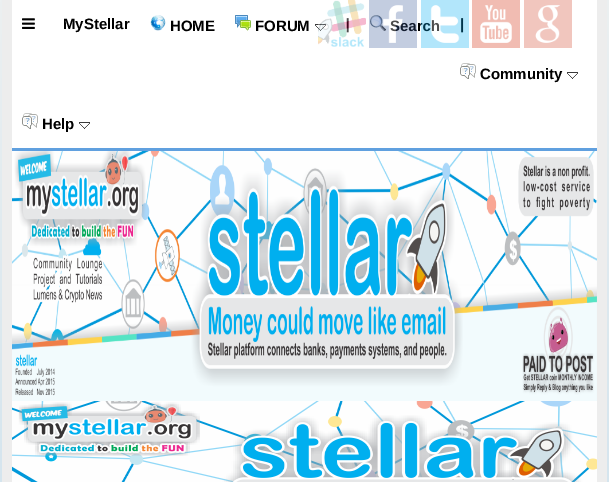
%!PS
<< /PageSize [609 482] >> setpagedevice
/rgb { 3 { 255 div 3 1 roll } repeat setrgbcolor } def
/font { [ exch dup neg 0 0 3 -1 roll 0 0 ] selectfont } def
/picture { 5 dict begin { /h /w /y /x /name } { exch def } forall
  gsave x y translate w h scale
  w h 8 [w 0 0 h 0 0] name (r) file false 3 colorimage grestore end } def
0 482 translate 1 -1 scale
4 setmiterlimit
255 255 255 rgb
0 0 609 482 rectfill
gsave 0 0 moveto 609 0 lineto 609 482 lineto 0 482 lineto closepath clip newpath 305 1844 translate 431 2607 scale
<< /ShadingType 3 /ColorSpace /DeviceRGB /Coords [0 0 0 0 0 1] /Extend [true true] /Function << /FunctionType 2 /Domain [0 1] /C0 [0.204 0.596 0.859] /C1 [0.925 0.941 0.945] /N 1 >> >> shfill grestore
237 237 237 rgb
2 0 605 482 rectfill
255 255 255 rgb
12 0 585 148 rectfill
(img/4.rgb) 472 0 48 48 picture
(img/5.rgb) 524 0 48 48 picture
96 160 223 rgb
12 148 585 3 rectfill
(img/6.rgb) 22 18 13 11 picture
(img/7.rgb) 150 15 16 16 picture
(img/8.rgb) 235 15 16 16 picture
(img/9.rgb) 315 24 11 7 picture
(img/10.rgb) 370 15 16 16 picture
(img/11.rgb) 460 63 16 16 picture
(img/9.rgb) 567 72 11 7 picture
(img/11.rgb) 22 113 16 16 picture
(img/9.rgb) 79 122 11 7 picture
(img/12.rgb) 12 151 585 250 picture
(img/13.rgb) 12 401 585 81 picture
/LiberationSans-Bold 15 font
0 0 0 rgb
[
  [(HOME) 170 31]
  [(FORUM) 255 31]
  [(|) 346 29]
] { aload pop moveto show } forall
(img/1.rgb) 318 0 48 47 picture
390 31 moveto (Search) show
(img/2.rgb) 369 0 48 48 picture
460 29 moveto (|) show
(img/3.rgb) 421 0 48 48 picture
[
  [(Community) 480 79]
  [(Help) 42 129]
  [(MyStellar) 63 29]
] { aload pop moveto show } forall
showpage
